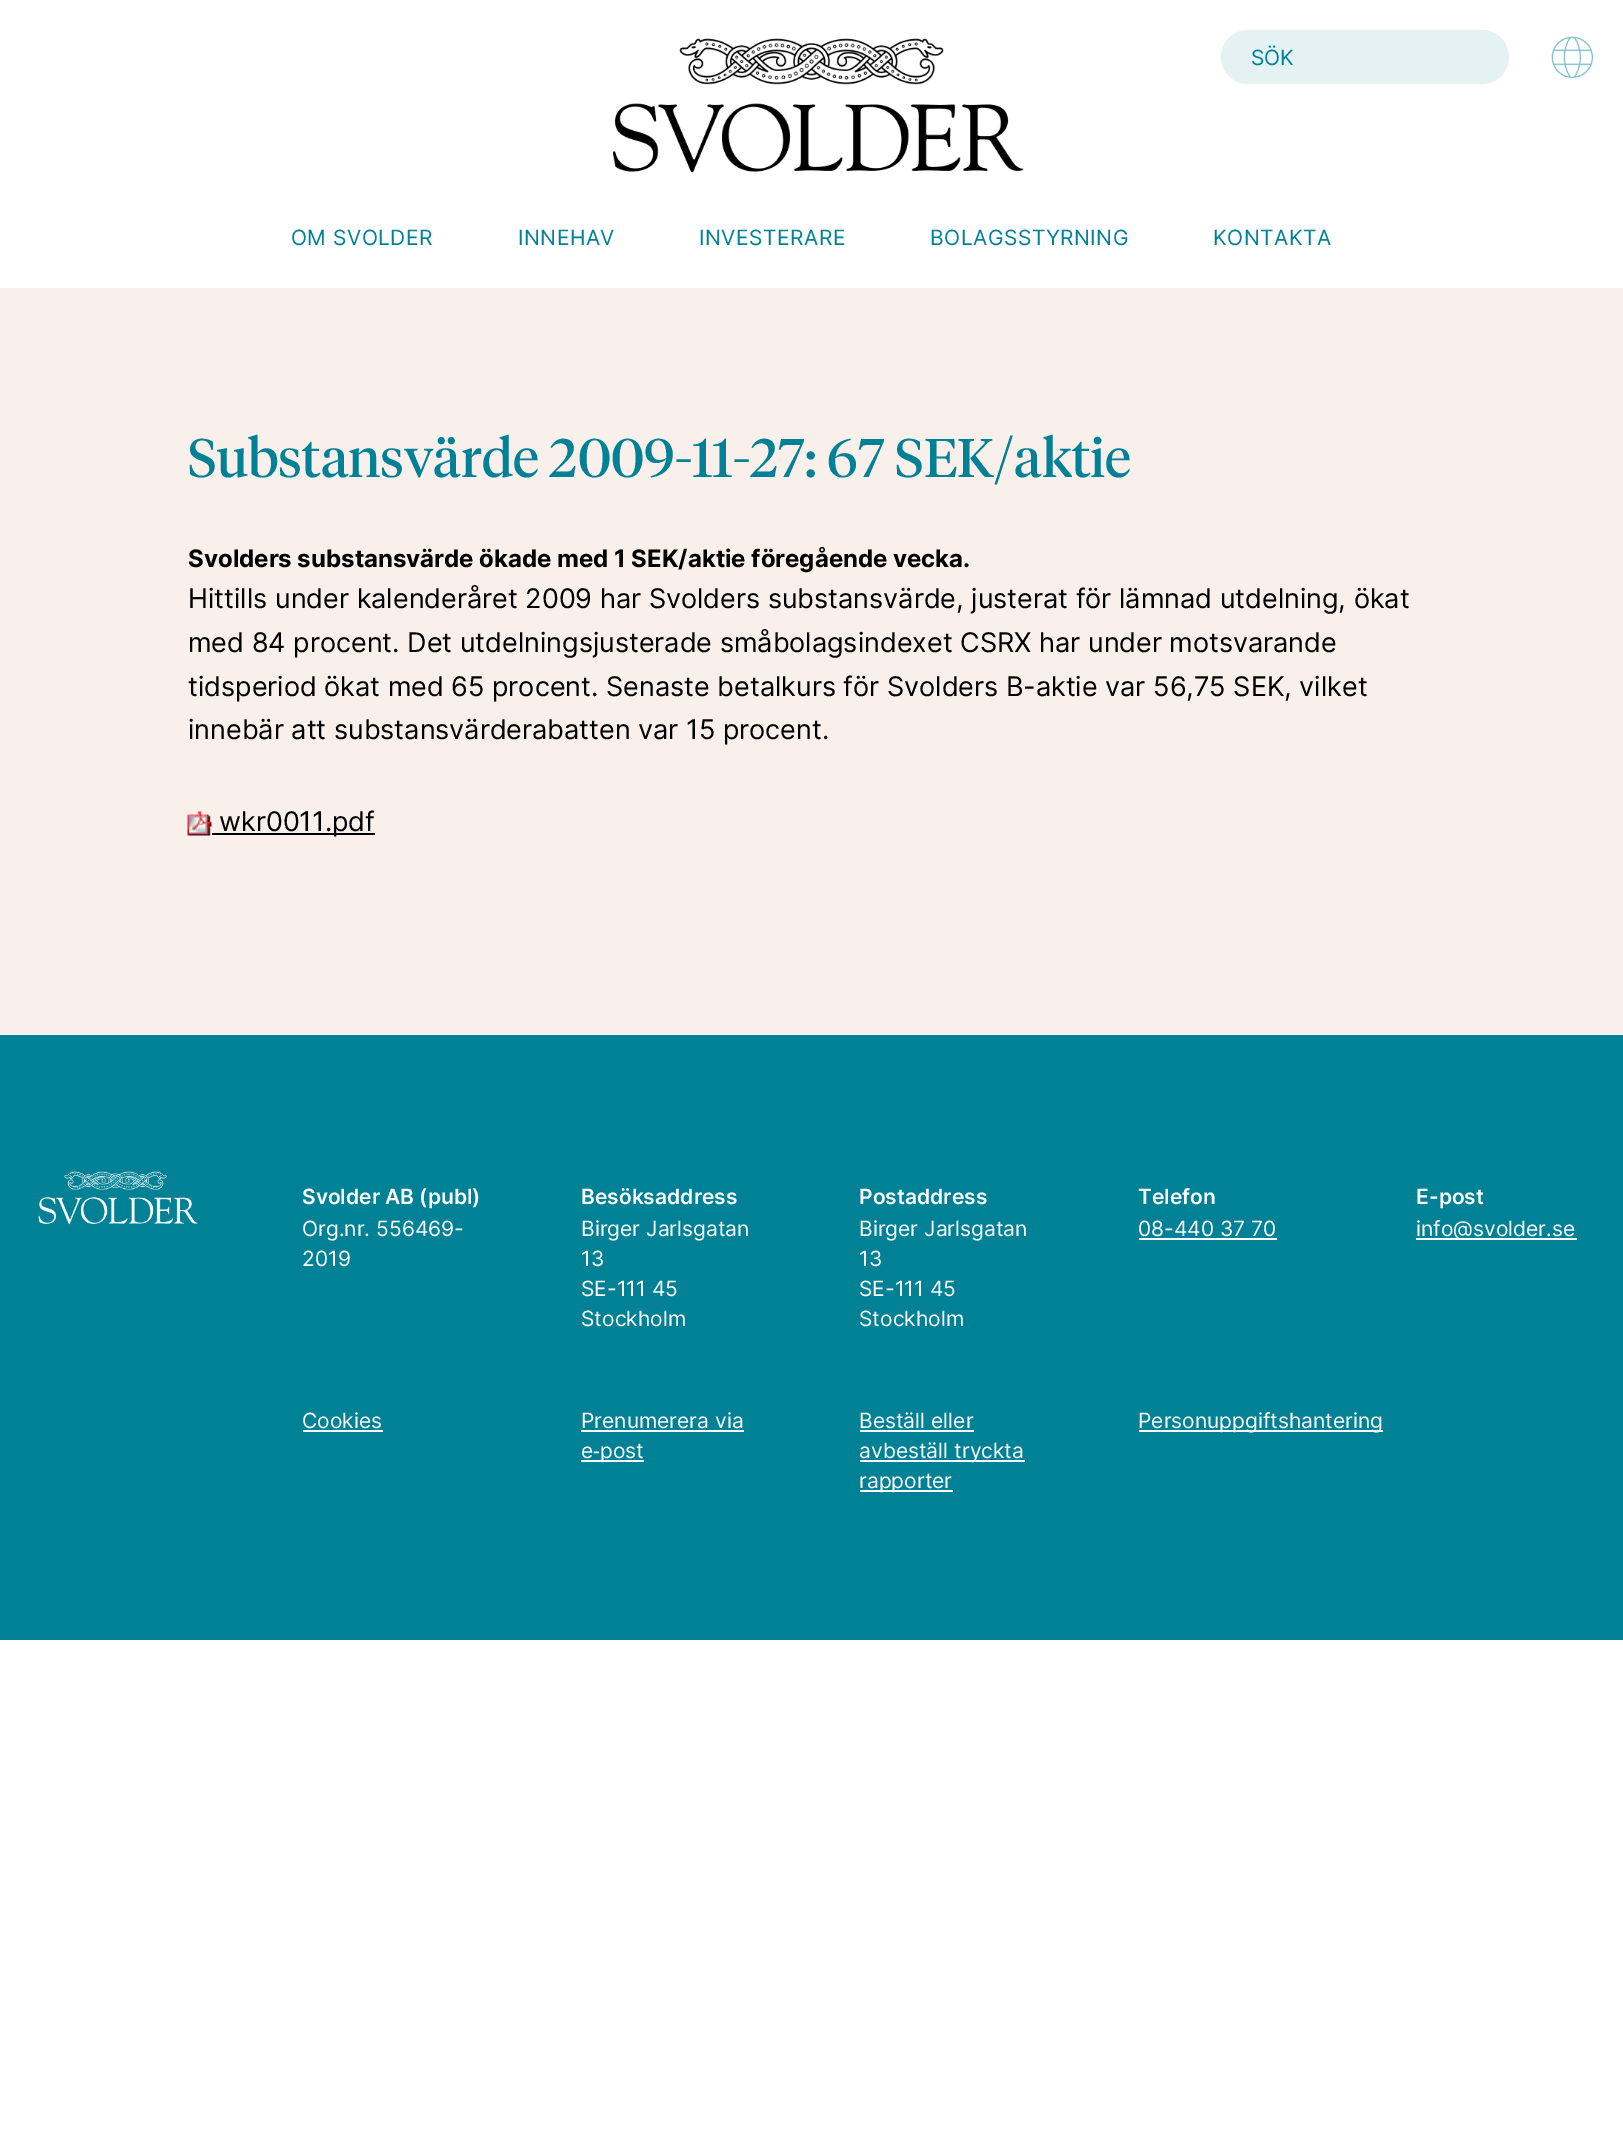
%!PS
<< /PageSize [1623 2142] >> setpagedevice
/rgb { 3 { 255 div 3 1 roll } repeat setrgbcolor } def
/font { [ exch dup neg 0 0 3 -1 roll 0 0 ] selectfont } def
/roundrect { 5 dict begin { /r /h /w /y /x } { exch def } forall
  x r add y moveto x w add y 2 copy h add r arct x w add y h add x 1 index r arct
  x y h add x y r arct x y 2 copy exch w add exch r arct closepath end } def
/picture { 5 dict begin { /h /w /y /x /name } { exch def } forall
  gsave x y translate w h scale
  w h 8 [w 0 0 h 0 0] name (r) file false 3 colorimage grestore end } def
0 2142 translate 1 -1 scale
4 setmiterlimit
255 255 255 rgb
0 0 1623 2142 rectfill
(img/1.rgb) 613 38 411 135 picture
229 242 244 rgb
1221 30 288 54 27 roundrect fill
(img/2.rgb) 1551 36 42 42 picture
250 240 235 rgb
0 288 1623 747 rectfill
(img/3.rgb) 187 811 25 25 picture
0 0 0 rgb
212 833 163 2 rectfill
0 129 149 rgb
0 1035 1623 605 rectfill
(img/4.rgb) 38 1171 160 54 picture
[
  [1139 1238 138 2 255 255 255]
  [1416 1238 161 2 255 255 255]
  [303 1430 80 2 255 255 255]
  [581 1430 163 2 255 255 255]
  [581 1460 63 2 255 255 255]
  [860 1430 114 2 255 255 255]
  [860 1460 165 2 255 255 255]
  [860 1490 93 2 255 255 255]
  [1139 1430 244 2 255 255 255]
] { aload pop rgb rectfill } forall
/Inter-Regular 21 font
0 129 149 rgb
1251 65 moveto (SÖK) show
291 245 moveto 0.5 0 (OM SVOLDER) ashow
518 245 moveto 0.5 0 (INNEHAV) ashow
699 245 moveto 0.5 0 (INVESTERARE) ashow
930 245 moveto 0.5 0 (BOLAGSSTYRNING) ashow
1213 245 moveto 0.5 0 (KONTAKTA) ashow
/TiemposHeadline-Regular 54 font
188 477 moveto (Substansvärde 2009-11-27: 67 SEK/aktie) show
/Inter-Bold 24 font
0 0 0 rgb
188 567 moveto (Svolders substansvärde ökade med 1 SEK/aktie föregående vecka.) show
/Inter-Regular 27 font
[
  [(Hittills under kalenderåret 2009 har Svolders substansvärde, justerat för lämnad utdelning, ökat) 188 608]
  [(med 84 procent. Det utdelningsjusterade småbolagsindexet CSRX har under motsvarande) 188 652]
  [(tidsperiod ökat med 65 procent. Senaste betalkurs för Svolders B-aktie var 56,75 SEK, vilket) 188 696]
  [(innebär att substansvärderabatten var 15 procent.) 188 739]
  [(wkr0011.pdf) 219 831]
] { aload pop moveto show } forall
/Inter-SemiBold 21 font
255 255 255 rgb
302 1204 moveto (Svolder AB \(publ\)) show
/Inter-Regular 21 font
302 1236 moveto (Org.nr. 556469-) show
302 1266 moveto (2019) show
/Inter-SemiBold 21 font
581 1204 moveto (Besöksaddress) show
/Inter-Regular 21 font
[
  [(Birger Jarlsgatan) 581 1236]
  [(13) 581 1266]
  [(SE-111 45) 581 1296]
  [(Stockholm) 581 1326]
] { aload pop moveto show } forall
/Inter-SemiBold 21 font
859 1204 moveto (Postaddress) show
/Inter-Regular 21 font
[
  [(Birger Jarlsgatan) 859 1236]
  [(13) 859 1266]
  [(SE-111 45) 859 1296]
  [(Stockholm) 859 1326]
] { aload pop moveto show } forall
/Inter-SemiBold 21 font
1138 1204 moveto (Telefon) show
/Inter-Regular 21 font
1138 1236 moveto (08-440 37 70) show
/Inter-SemiBold 21 font
1416 1204 moveto (E-post) show
/Inter-Regular 21 font
[
  [(info@svolder.se) 1416 1236]
  [(Cookies) 302 1428]
  [(Prenumerera via) 581 1428]
  [(e) 581 1458]
] { aload pop moveto show } forall
/NotoSans-Regular 21 font
593 1458 moveto (‑) show
/Inter-Regular 21 font
[
  [(post) 600 1458]
  [(Beställ eller) 859 1428]
  [(avbeställ tryckta) 859 1458]
  [(rapporter) 859 1488]
  [(Personuppgiftshantering) 1138 1428]
] { aload pop moveto show } forall
showpage
